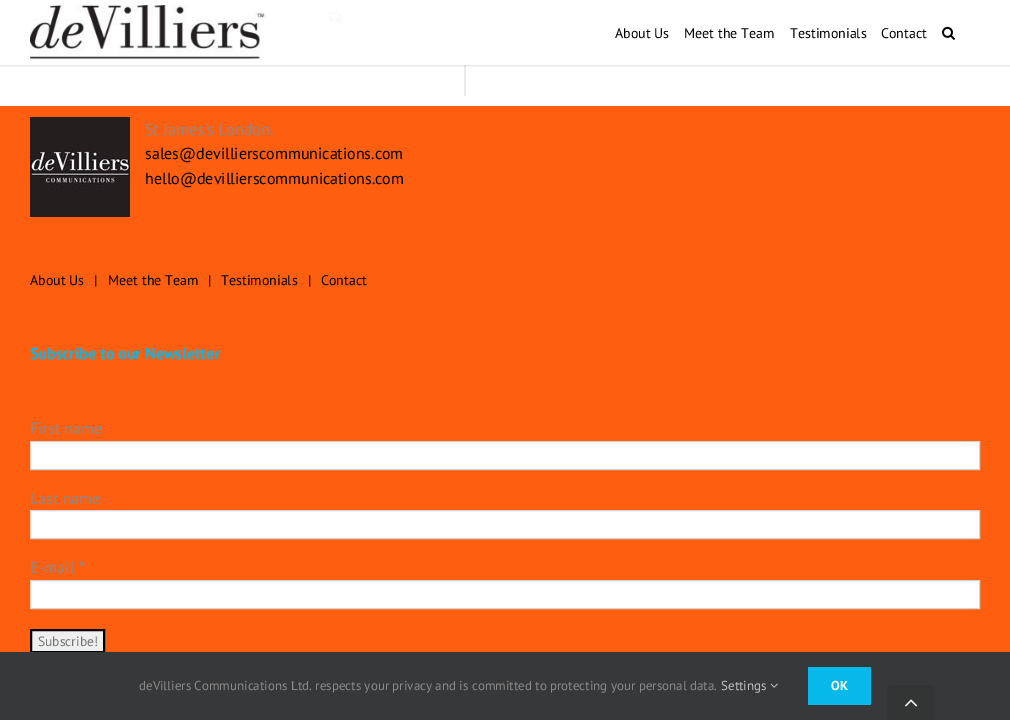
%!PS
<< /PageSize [1010 720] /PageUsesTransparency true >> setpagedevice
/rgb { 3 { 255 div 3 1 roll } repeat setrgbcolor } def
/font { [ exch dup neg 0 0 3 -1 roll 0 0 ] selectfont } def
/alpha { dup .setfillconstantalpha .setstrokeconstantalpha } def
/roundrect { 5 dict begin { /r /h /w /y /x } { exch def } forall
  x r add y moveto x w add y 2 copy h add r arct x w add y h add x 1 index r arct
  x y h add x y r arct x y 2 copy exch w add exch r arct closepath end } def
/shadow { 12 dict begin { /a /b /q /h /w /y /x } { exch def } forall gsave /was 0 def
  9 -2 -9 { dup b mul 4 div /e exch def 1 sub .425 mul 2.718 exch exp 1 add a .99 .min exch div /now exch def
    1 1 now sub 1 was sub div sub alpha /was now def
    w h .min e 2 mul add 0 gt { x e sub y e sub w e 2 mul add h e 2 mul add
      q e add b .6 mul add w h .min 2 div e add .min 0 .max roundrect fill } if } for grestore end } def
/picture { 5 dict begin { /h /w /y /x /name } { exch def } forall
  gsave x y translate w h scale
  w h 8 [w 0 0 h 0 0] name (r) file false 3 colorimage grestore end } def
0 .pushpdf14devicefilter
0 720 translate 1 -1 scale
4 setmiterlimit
255 255 255 rgb
0 0 1010 720 rectfill
(img/1.rgb) 329 11 14 13 picture
235 234 234 rgb
464 65 2 31 rectfill
gsave
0 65 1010 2 rectclip
0 0 0 rgb
0 1 1010 65 0 1.5 0.12 shadow
grestore
(img/2.rgb) 30 5 237 55 picture
(img/3.rgb) 942 26 13 14 picture
253 94 15 rgb
0 106 1010 546 rectfill
(img/4.rgb) 30 117 100 100 picture
255 255 255 rgb
30.5 441.5 moveto 979.5 441.5 lineto 979.5 469.5 lineto 30.5 469.5 lineto closepath gsave fill grestore
210 210 210 rgb
stroke
255 255 255 rgb
30.5 510.5 moveto 979.5 510.5 lineto 979.5 538.5 lineto 30.5 538.5 lineto closepath gsave fill grestore
210 210 210 rgb
stroke
255 255 255 rgb
30.5 580.5 moveto 979.5 580.5 lineto 979.5 608.5 lineto 30.5 608.5 lineto closepath gsave fill grestore
210 210 210 rgb
stroke
239 239 239 rgb
31 630 moveto 104 630 lineto 104 652 lineto 31 652 lineto closepath gsave fill grestore
0 0 0 rgb
2 setlinewidth
stroke
54 56 57 rgb
0 652 1010 68 rectfill
(img/5.rgb) 770 683 8 5 picture
6 185 234 rgb
808 667 63 38 rectfill
51 52 52 rgb
891 685 moveto 931 685 lineto 933 685 935 687 935 689 curveto 935 720 lineto 887 720 lineto 887 689 lineto 887 687 889 685 891 685 curveto closepath fill
(img/6.rgb) 905 699 13 8 picture
/PTSans-Regular 14 font
0 0 0 rgb
[
  [(About Us) 615 38]
  [(Meet the Team) 684 38]
  [(Testimonials) 790 38]
  [(Contact) 881 38]
] { aload pop moveto show } forall
/PTSans-Regular 16 font
140 137 137 rgb
145 135 moveto (St James's London.) show
0 0 0 rgb
145 159 moveto (sales@devillierscommunications.com) show
145 184 moveto (hello@devillierscommunications.com) show
/PTSans-Regular 14 font
[
  [(About Us) 30 285]
  [(|) 94 285]
  [(Meet the Team) 108 285]
  [(|) 208 285]
  [(Testimonials) 221 285]
  [(|) 308 285]
  [(Contact) 321 285]
] { aload pop moveto show } forall
/PTSans-Bold 16 font
6 185 234 rgb
30 359 moveto (Subscribe to our Newsletter) show
/PTSans-Regular 16 font
140 137 137 rgb
[
  [(First name) 30 434]
  [(Last name) 30 504]
  [(E-mail) 30 573]
] { aload pop moveto show } forall
/PTSans-Bold 16 font
79 573 moveto (*) show
/PTSans-Regular 13.5 font
116 116 116 rgb
38 646 moveto (Subscribe!) show
/PTSans-Regular 13 font
140 137 137 rgb
139 690 moveto (deVilliers Communications Ltd. respects your privacy and is committed to protecting your personal data.) show
191 191 191 rgb
721 690 moveto (Settings) show
/PTSans-Bold 13 font
255 255 255 rgb
831 690 moveto (OK) show
.poppdf14devicefilter showpage
